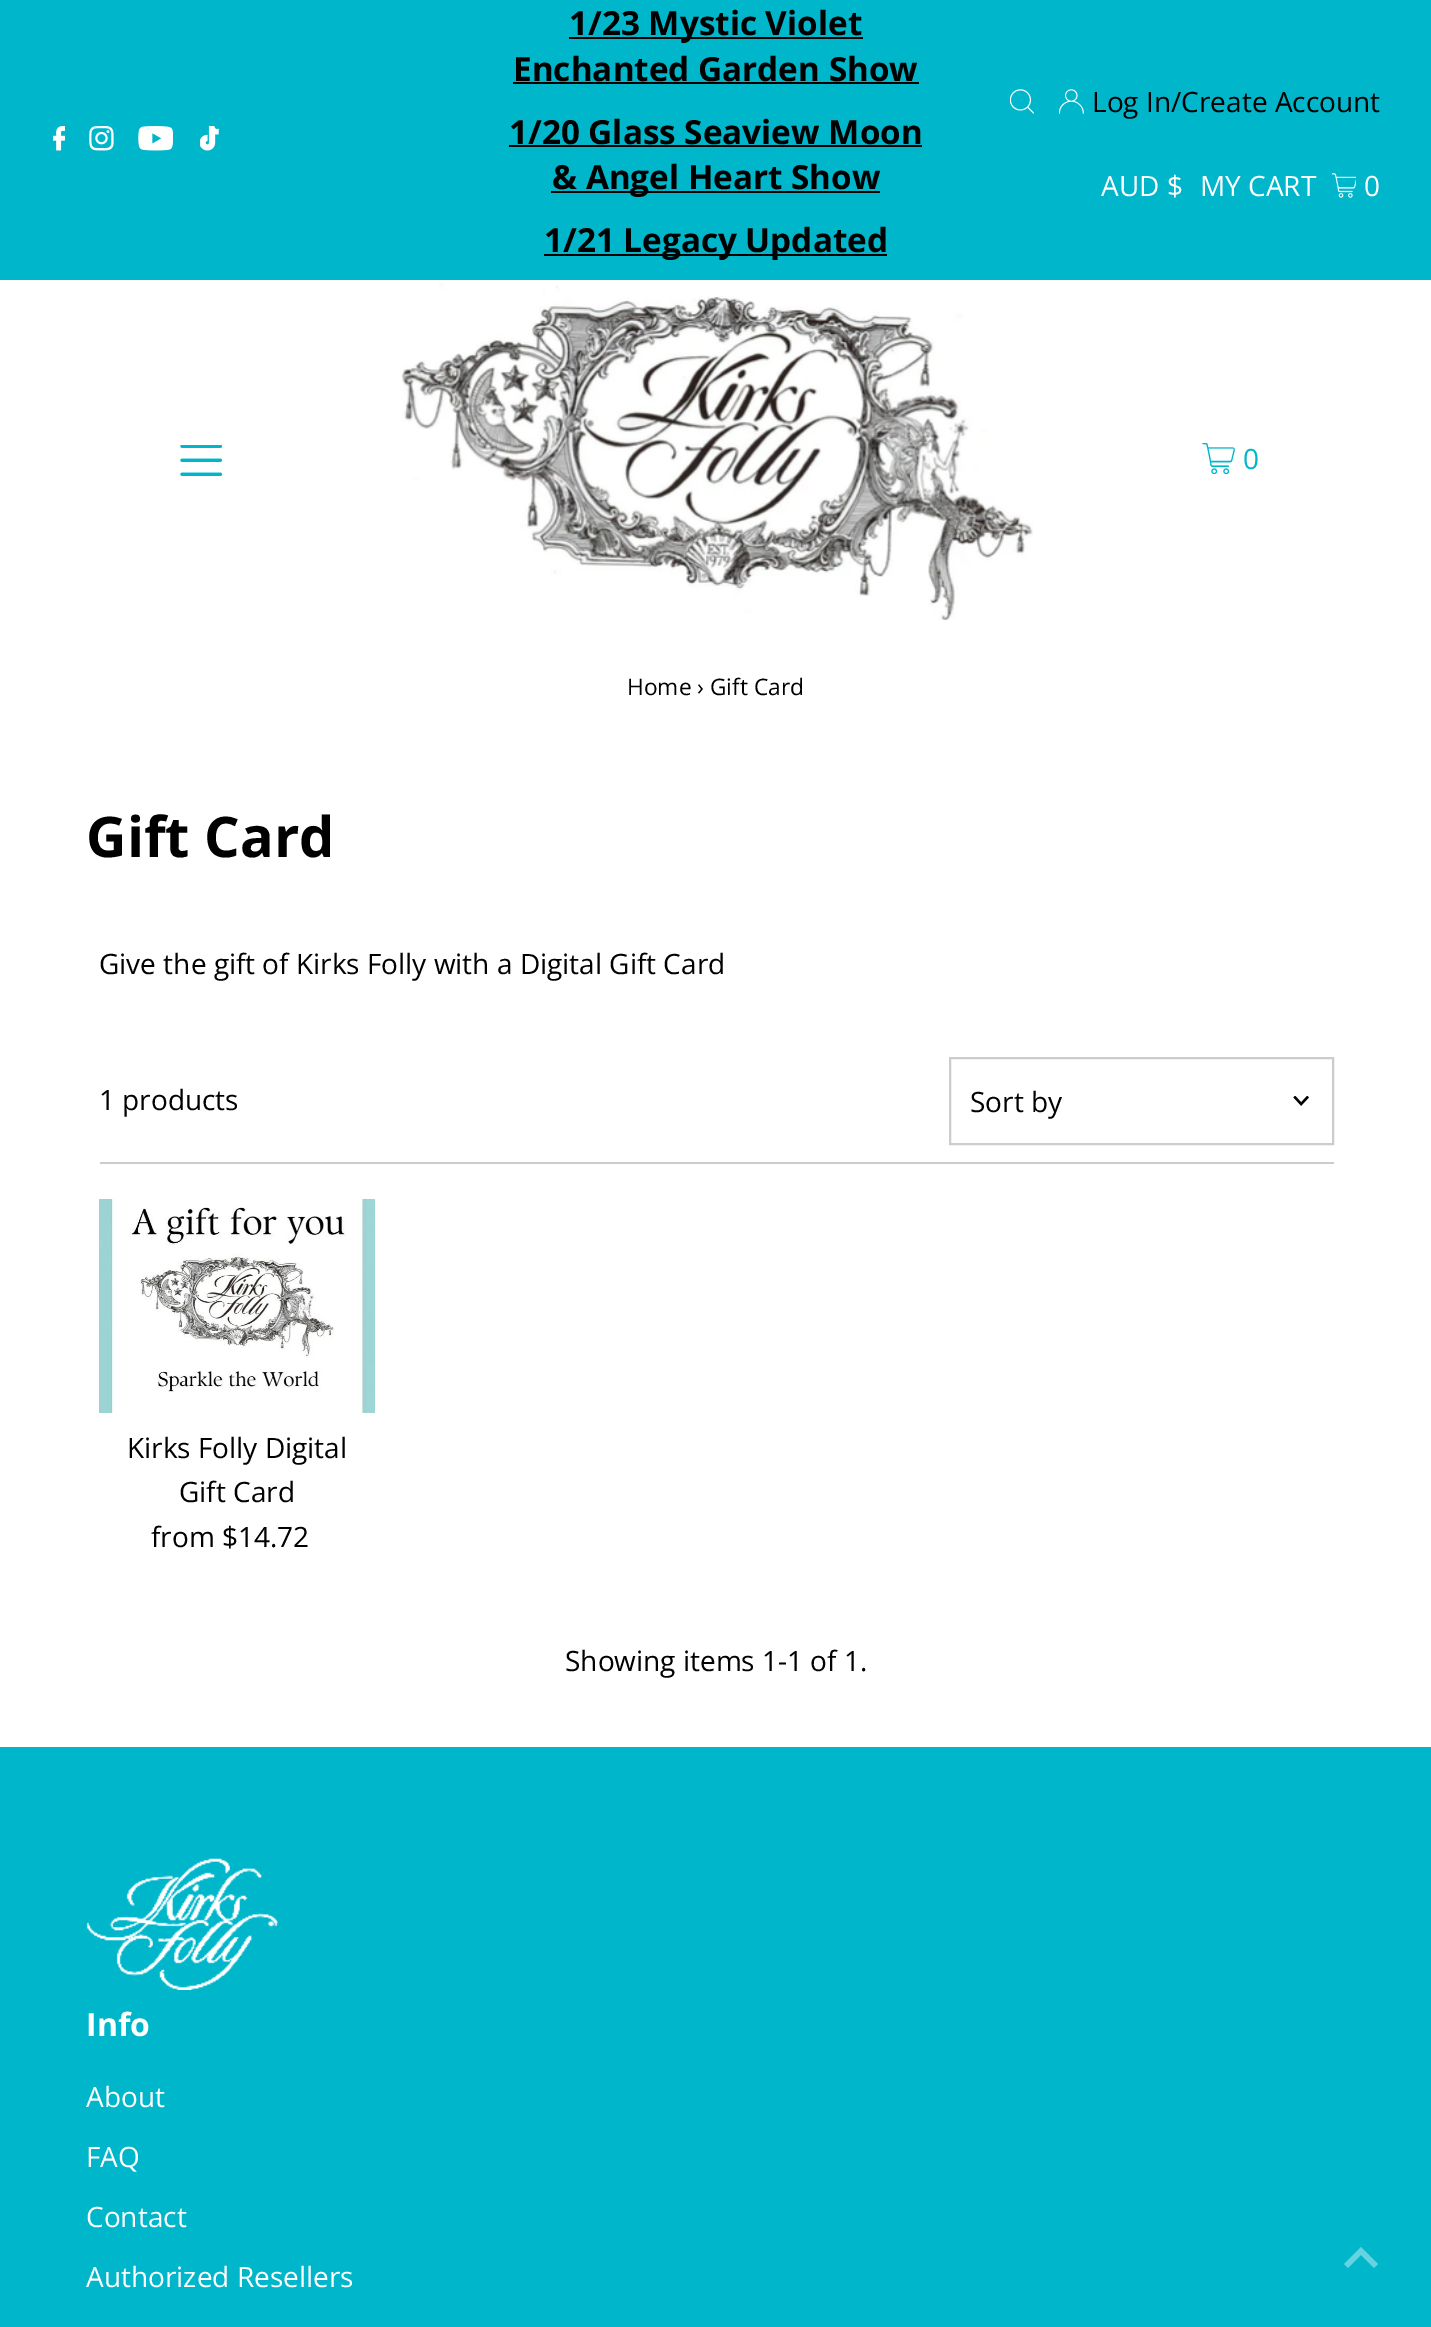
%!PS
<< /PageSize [1431 2327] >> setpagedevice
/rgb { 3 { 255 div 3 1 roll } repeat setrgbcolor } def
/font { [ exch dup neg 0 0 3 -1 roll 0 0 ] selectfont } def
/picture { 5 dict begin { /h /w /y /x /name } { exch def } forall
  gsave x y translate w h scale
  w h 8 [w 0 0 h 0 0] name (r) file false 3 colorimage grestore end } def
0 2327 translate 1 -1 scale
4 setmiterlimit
255 255 255 rgb
0 0 1431 2327 rectfill
0 182 203 rgb
0 0 1431 280 rectfill
(img/1.rgb) 53 126 12 25 picture
(img/2.rgb) 89 126 25 25 picture
(img/3.rgb) 138 126 35 25 picture
(img/4.rgb) 200 126 19 25 picture
[
  [569 37 294 2 0 0 0]
  [513 82 406 2 0 0 0]
  [509 145 413 2 0 0 0]
  [551 191 329 2 0 0 0]
  [544 254 343 2 0 0 0]
] { aload pop rgb rectfill } forall
(img/5.rgb) 1010 89 24 25 picture
(img/6.rgb) 1059 89 25 25 picture
(img/7.rgb) 1332 173 24 25 picture
(img/8.rgb) 180 445 42 31 picture
(img/9.rgb) 402 283 631 337 picture
(img/10.rgb) 1202 443 33 31 picture
204 204 204 rgb
100 1162 1234 2 rectfill
2 setlinewidth
950 1058 383 86 rectstroke
(img/11.rgb) 1293 1096 16 10 picture
(img/12.rgb) 99 1199 276 214 picture
0 182 203 rgb
0 1747 1431 580 rectfill
(img/13.rgb) 86 1858 193 132 picture
102 211 224 rgb
1361 2247 moveto 1344 2264 lineto 1348 2268 lineto 1361 2255 lineto 1374 2268 lineto 1378 2264 lineto closepath fill
/OpenSans-Bold 33.25 font
0 0 0 rgb
[
  [(1/23 Mystic Violet) 569 35]
  [(Enchanted Garden Show) 513 81]
  [(1/20 Glass Seaview Moon) 509 144]
  [(& Angel Heart Show) 552 189]
  [(1/21 Legacy Updated) 544 252]
] { aload pop moveto show } forall
/OpenSans-Regular 28 font
1092 112 moveto (Log In/Create Account) show
255 255 255 rgb
[
  [(AUD $) 1101 196]
  [(MY CART) 1200 196]
  [(0) 1364 196]
] { aload pop moveto show } forall
0 182 203 rgb
1243 469 moveto (0) show
/OpenSans-Regular 22.75 font
0 0 0 rgb
627 695 moveto (Home › Gift Card) show
/OpenSans-Bold 56 font
86 857 moveto (Gift Card) show
/OpenSans-Regular 28 font
[
  [(Give the gift of Kirks Folly with a Digital Gift Card) 99 974]
  [(1 products) 99 1110]
  [(Sort by) 970 1112]
  [(Kirks Folly Digital) 127 1458]
  [(Gift Card) 179 1502]
  [(from $14.72) 151 1547]
  [(Showing items 1-1 of 1.) 565 1671]
] { aload pop moveto show } forall
/OpenSans-Bold 32 font
255 255 255 rgb
86 2036 moveto (Info) show
/OpenSans-Regular 28 font
[
  [(About) 86 2107]
  [(FAQ) 86 2167]
  [(Contact) 86 2227]
  [(Authorized Resellers) 86 2287]
] { aload pop moveto show } forall
showpage
